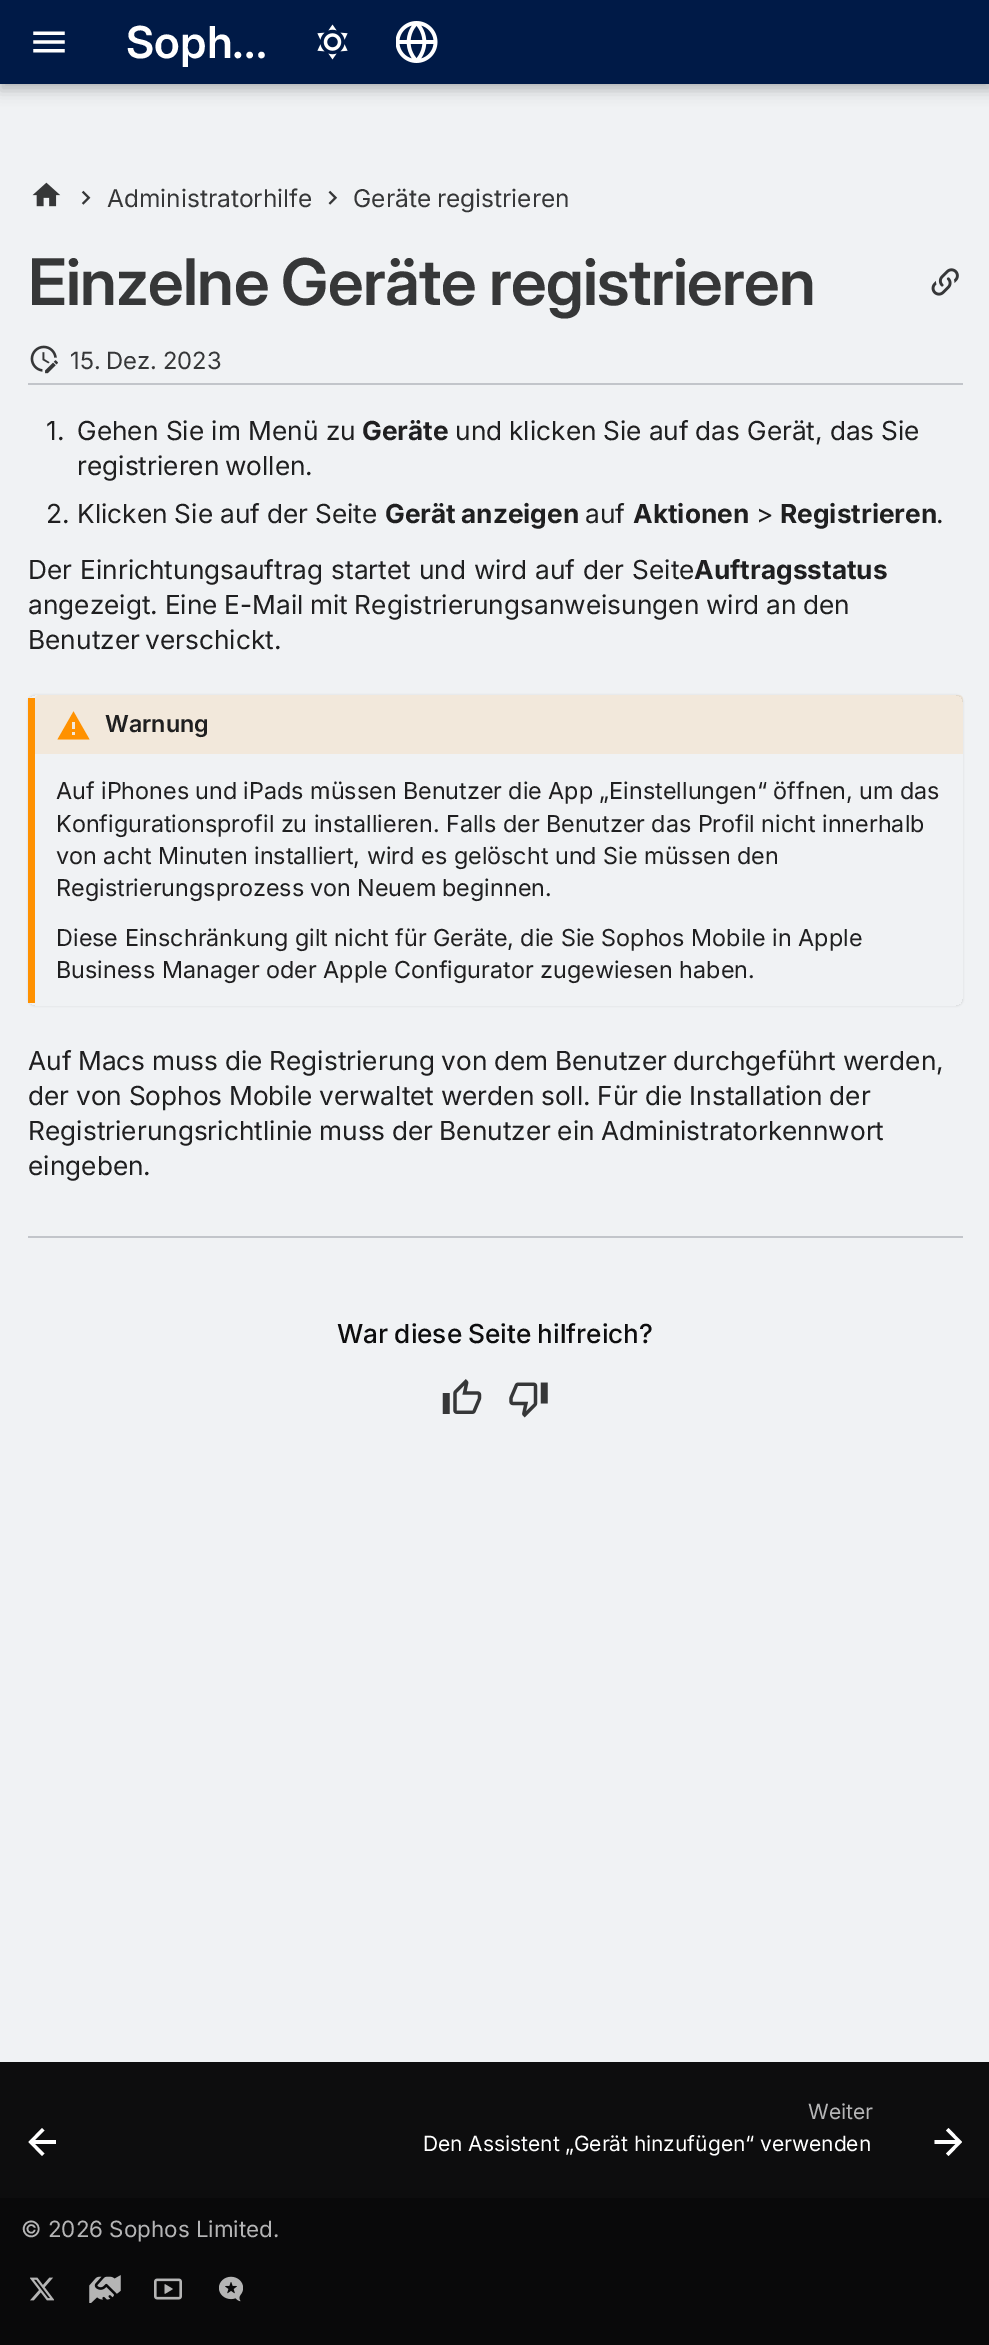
%!PS
<< /PageSize [989 2345] /PageUsesTransparency true >> setpagedevice
/rgb { 3 { 255 div 3 1 roll } repeat setrgbcolor } def
/font { [ exch dup neg 0 0 3 -1 roll 0 0 ] selectfont } def
/alpha { dup .setfillconstantalpha .setstrokeconstantalpha } def
/roundrect { 5 dict begin { /r /h /w /y /x } { exch def } forall
  x r add y moveto x w add y 2 copy h add r arct x w add y h add x 1 index r arct
  x y h add x y r arct x y 2 copy exch w add exch r arct closepath end } def
/shadow { 12 dict begin { /a /b /q /h /w /y /x } { exch def } forall gsave /was 0 def
  9 -2 -9 { dup b mul 4 div /e exch def 1 sub .425 mul 2.718 exch exp 1 add a .99 .min exch div /now exch def
    1 1 now sub 1 was sub div sub alpha /was now def
    w h .min e 2 mul add 0 gt { x e sub y e sub w e 2 mul add h e 2 mul add
      q e add b .6 mul add w h .min 2 div e add .min 0 .max roundrect fill } if } for grestore end } def
/picture { 5 dict begin { /h /w /y /x /name } { exch def } forall
  gsave x y translate w h scale
  w h 8 [w 0 0 h 0 0] name (r) file false 3 colorimage grestore end } def
0 .pushpdf14devicefilter
0 2345 translate 1 -1 scale
4 setmiterlimit
240 242 244 rgb
0 0 989 2345 rectfill
0 0 0 rgb
0 7 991 84 0 7 0.2 shadow
0 0 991 84 0 3.5 0.1 shadow
0 26 71 rgb
0 0 989 84 rectfill
(img/1.rgb) 33 31 32 22 picture
(img/2.rgb) 317 24 31 36 picture
(img/3.rgb) 396 21 42 42 picture
(img/4.rgb) 32 182 29 25 picture
(img/5.rgb) 81 190 10 15 picture
(img/6.rgb) 328 190 10 15 picture
(img/7.rgb) 931 268 28 28 picture
194 197 202 rgb
28 383 935 2 rectfill
(img/8.rgb) 30 345 28 29 picture
gsave
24 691 moveto 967 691 lineto 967 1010 lineto 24 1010 lineto closepath 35 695 moveto 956 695 lineto 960 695 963 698 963 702 curveto 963 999 lineto 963 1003 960 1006 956 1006 curveto 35 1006 lineto 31 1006 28 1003 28 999 curveto 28 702 lineto 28 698 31 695 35 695 curveto closepath eoclip newpath
0 0 0 rgb
28 695 935 311 7 1 0.1 shadow
grestore
255 145 0 rgb
28 698 7 305 rectfill
0.1 alpha
39 695 moveto 959 695 lineto 961 695 963 697 963 699 curveto 963 754 lineto 35 754 lineto 35 699 lineto 35 697 37 695 39 695 curveto closepath fill
1 alpha
75 729 moveto 72 729 lineto 72 722 lineto 75 722 lineto 75 735 moveto 72 735 lineto 72 732 lineto 75 732 lineto 57.5 739.5 moveto 89.5 739.5 lineto 73.5 711.5 lineto closepath fill
194 197 202 rgb
28 1236 935 2 rectfill
(img/9.rgb) 442 1379 40 35 picture
(img/10.rgb) 509 1382 39 36 picture
13 13 14 rgb
0 2062 989 136 rectfill
255 255 255 rgb
56 2140 moveto 56 2144 lineto 35 2144 lineto 44.5 2153.5 lineto 42 2156 lineto 28.5 2142 lineto 42 2128 lineto 44.5 2130.5 lineto 35 2140 lineto closepath fill
934.5 2140 moveto 934.5 2144 lineto 955.5 2144 lineto 946 2153.5 lineto 948.5 2156 lineto 962 2142 lineto 948.5 2128 lineto 946 2130.5 lineto 955.5 2140 lineto closepath fill
9 9 10 rgb
0 2198 989 147 rectfill
(img/11.rgb) 30 2277 24 24 picture
(img/12.rgb) 89 2275 32 28 picture
(img/13.rgb) 154 2278 28 22 picture
(img/14.rgb) 219 2276 24 26 picture
/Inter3-SemiBold 44 font
255 255 255 rgb
126 58 moveto (Soph…) show
/Inter-Regular 24.5 font
54 55 56 rgb
107 207 moveto (Administratorhilfe) show
353 207 moveto -1 0 32 (Geräte registrieren) widthshow
/Inter-SemiBold 64.25 font
28 305 moveto -1 0 32 -0.65 0 (Einzelne Geräte registrieren) awidthshow
/Inter-Regular 23.75 font
70 369 moveto -1 0 32 (15. Dez. 2023) widthshow
/Inter-Regular 26.25 font
31 31 32 rgb
46 440 moveto (1.) show
77 440 moveto (Gehen Sie im Menü zu) show
/Inter-Bold 26.25 font
362 440 moveto (Geräte) show
/Inter-Regular 26.25 font
455 440 moveto -0.5 0 32 (und klicken Sie auf das Gerät, das Sie) widthshow
77 475 moveto -2 0 32 (registrieren wollen.) widthshow
46 523 moveto (2.) show
77 523 moveto -0.5 0 32 (Klicken Sie auf der Seite) widthshow
/Inter-Bold 26.25 font
385 523 moveto -1 0 32 (Gerät anzeigen) widthshow
/Inter-Regular 26.25 font
585 523 moveto (auf) show
/Inter-Bold 26.25 font
633 523 moveto (Aktionen) show
/Inter-Regular 26.25 font
756 523 moveto (>) show
/Inter-Bold 26.25 font
780 523 moveto (Registrieren) show
/Inter-Regular 26.25 font
936 523 moveto (.) show
28 579 moveto 0.5 0 32 (Der Einrichtungsauftrag startet und wird auf der Seite) widthshow
/Inter-Bold 26.25 font
694 579 moveto (Auftragsstatus) show
/Inter-Regular 26.25 font
28 614 moveto -0.75 0 32 (angezeigt. Eine E-Mail mit Registrierungsanweisungen wird an den) widthshow
28 649 moveto -2 0 32 (Benutzer verschickt.) widthshow
/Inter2-SemiBold 23.35 font
105 732 moveto (Warnung) show
/Inter-Regular 23.35 font
56 799 moveto -0.25 0 32 (Auf iPhones und iPads müssen Benutzer die App „Einstellungen“ öffnen, um das) widthshow
56 832 moveto -0.25 0 32 (Konfigurationsprofil zu installieren. Falls der Benutzer das Profil nicht innerhalb) widthshow
56 864 moveto (von acht Minuten installiert, wird es gelöscht und Sie müssen den) show
56 896 moveto -0.5 0 32 (Registrierungsprozess von Neuem beginnen.) widthshow
56 946 moveto (Diese Einschränkung gilt nicht für Geräte, die Sie Sophos Mobile in Apple) show
56 978 moveto (Business Manager oder Apple Configurator zugewiesen haben.) show
/Inter-Regular 26.25 font
28 1070 moveto -0.75 0 32 (Auf Macs muss die Registrierung von dem Benutzer durchgeführt werden,) widthshow
28 1105 moveto -0.75 0 32 (der von Sophos Mobile verwaltet werden soll. Für die Installation der) widthshow
28 1140 moveto -1 0 32 (Registrierungsrichtlinie muss der Benutzer ein Administratorkennwort) widthshow
28 1175 moveto (eingeben.) show
/Inter-Medium 26.25 font
13 13 14 rgb
337 1343 moveto -0.75 0 32 (War diese Seite hilfreich?) widthshow
/Inter-Regular 21 font
181 181 182 rgb
808 2119 moveto (Weiter) show
255 255 255 rgb
423 2151 moveto -0.5 0 32 (Den Assistent „Gerät hinzufügen“ verwenden) widthshow
/Inter-Regular 22.4 font
181 181 182 rgb
21 2237 moveto (© 2026 Sophos Limited.) show
.poppdf14devicefilter showpage
